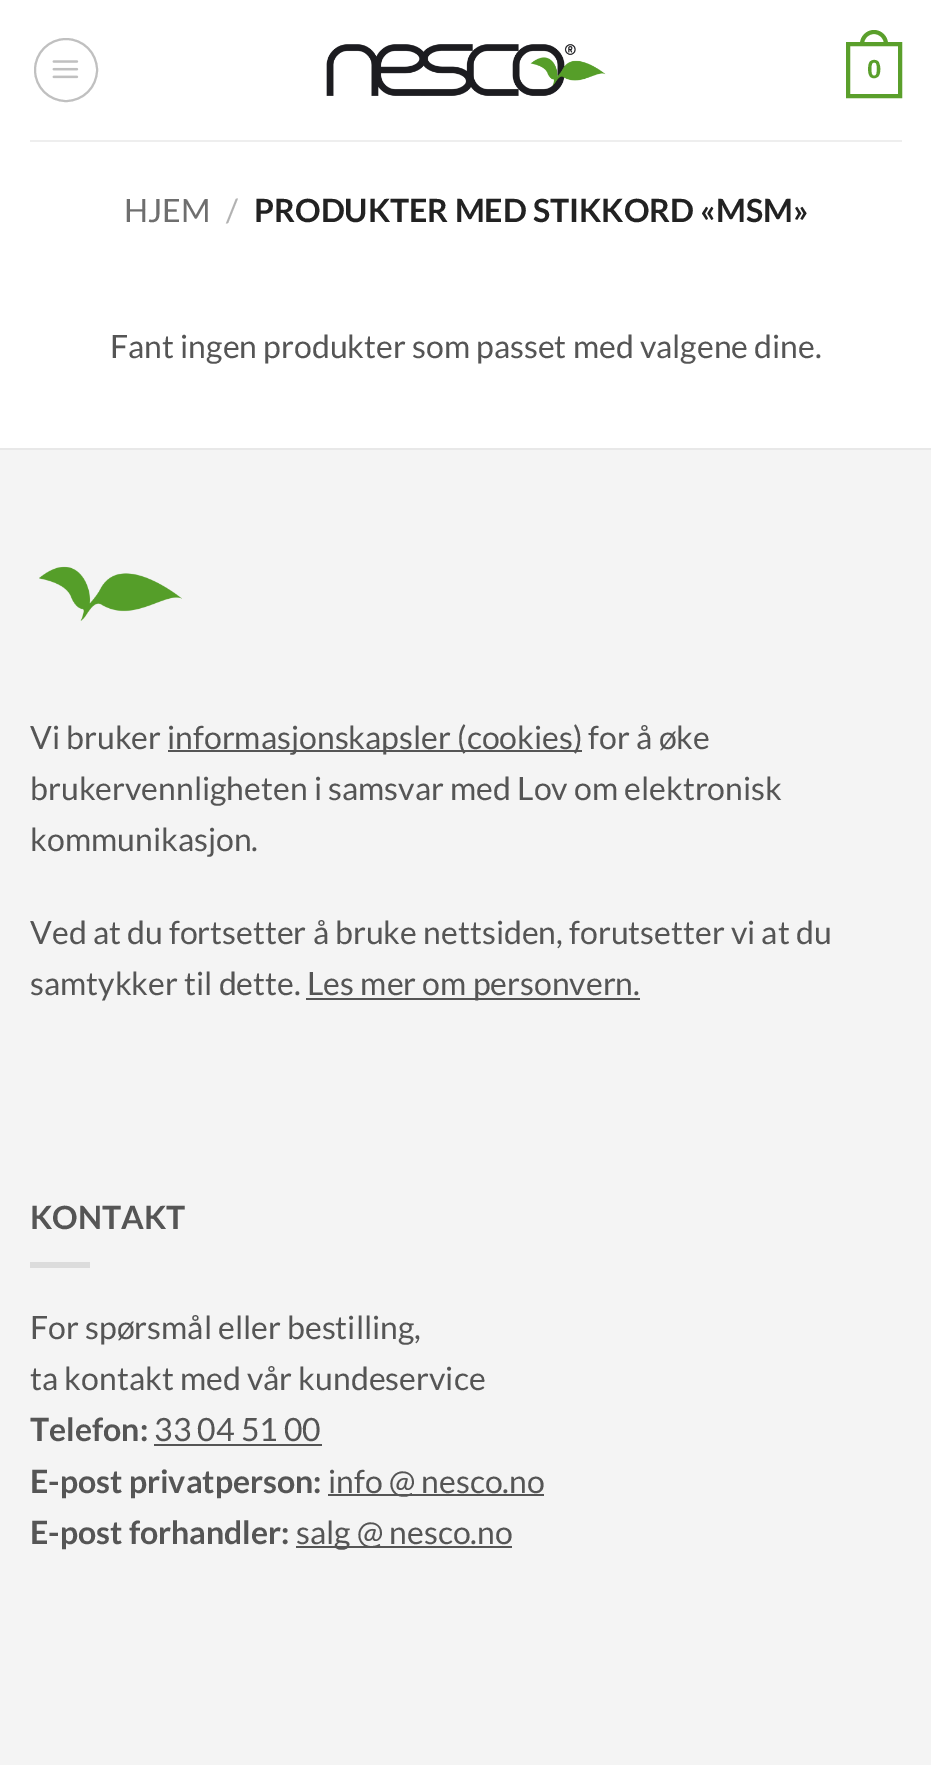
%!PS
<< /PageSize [931 1765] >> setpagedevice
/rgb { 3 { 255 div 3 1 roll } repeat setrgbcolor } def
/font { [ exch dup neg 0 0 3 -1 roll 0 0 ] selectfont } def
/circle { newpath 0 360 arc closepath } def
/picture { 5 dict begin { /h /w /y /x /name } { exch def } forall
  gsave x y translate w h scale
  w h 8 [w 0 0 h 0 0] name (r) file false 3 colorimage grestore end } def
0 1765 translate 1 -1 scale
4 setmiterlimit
255 255 255 rgb
0 0 931 1765 rectfill
192 192 192 rgb
2 setlinewidth
66 70 31 circle stroke
(img/1.rgb) 52 60 27 19 picture
(img/2.rgb) 326 44 280 52 picture
90 159 43 rgb
4 setlinewidth
848 44 52 52 rectstroke
874 30 moveto 881.5 30 888 36.5 888 44 curveto 888 46 lineto 860 46 lineto 860 44 lineto 860 36.5 866.5 30 874 30 curveto closepath 874 34 moveto 879.5 34 884 38.5 884 44 curveto 884 46 lineto 864 46 lineto 864 44 lineto 864 38.5 868.5 34 874 34 curveto closepath eofill
[
  [30 140 872 2 238 238 238]
  [0 450 931 1315 244 244 244]
  [0 448 931 2 232 232 232]
] { aload pop rgb rectfill } forall
(img/3.rgb) 39 566 143 55 picture
[
  [168 750 414 2 85 85 85]
  [306 998 334 2 85 85 85]
  [30 1262 60 6 220 220 220]
  [154 1444 168 2 85 85 85]
  [328 1494 216 2 85 85 85]
  [296 1546 216 2 85 85 85]
] { aload pop rgb rectfill } forall
/LiberationSans-Bold 26 font
90 159 43 rgb
867 78 moveto (0) show
/Lato-Regular 32 font
110 110 110 rgb
124 222 moveto (HJEM) show
178 178 178 rgb
226 222 moveto (/) show
/Lato-Bold 32 font
34 34 34 rgb
254 222 moveto (PRODUKTER MED STIKKORD «MSM») show
/Lato-Regular 32 font
85 85 85 rgb
[
  [(Fant ingen produkter som passet med valgene dine.) 110 358]
  [(Vi bruker) 30 749]
  [(informasjonskapsler \(cookies\) for å øke) 167 749]
  [(brukervennligheten i samsvar med Lov om elektronisk) 30 800]
  [(kommunikasjon.) 30 851]
  [(Ved at du fortsetter å bruke nettsiden, forutsetter vi at du) 30 944]
  [(samtykker til dette.) 30 995]
  [(Les mer om personvern.) 307 995]
] { aload pop moveto show } forall
/Lato-Bold 32 font
30 1229 moveto (KONTAKT) show
/Lato-Regular 32 font
30 1339 moveto (For spørsmål eller bestilling,) show
30 1390 moveto (ta kontakt med vår kundeservice) show
/Lato-Bold 32 font
30 1441 moveto (Telefon:) show
/Lato-Regular 32 font
154 1441 moveto (33 04 51 00) show
/Lato-Bold 32 font
30 1493 moveto (E-post privatperson:) show
/Lato-Regular 32 font
328 1493 moveto (info @ nesco.no) show
/Lato-Bold 32 font
30 1544 moveto (E-post forhandler:) show
/Lato-Regular 32 font
296 1544 moveto (salg @ nesco.no) show
showpage
